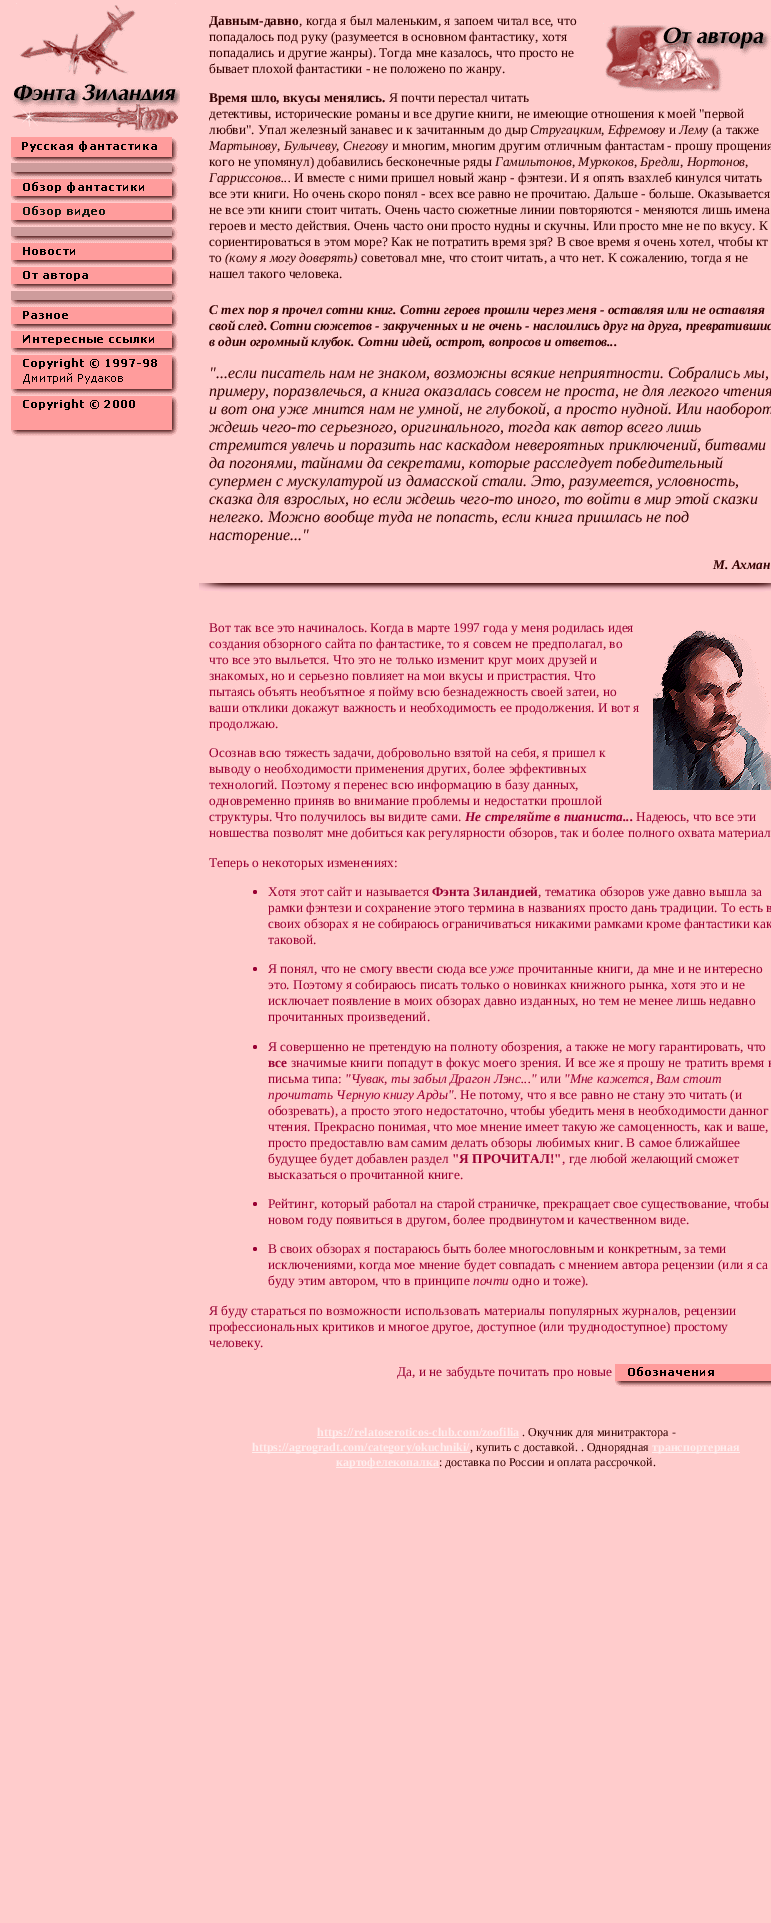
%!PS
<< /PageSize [771 1923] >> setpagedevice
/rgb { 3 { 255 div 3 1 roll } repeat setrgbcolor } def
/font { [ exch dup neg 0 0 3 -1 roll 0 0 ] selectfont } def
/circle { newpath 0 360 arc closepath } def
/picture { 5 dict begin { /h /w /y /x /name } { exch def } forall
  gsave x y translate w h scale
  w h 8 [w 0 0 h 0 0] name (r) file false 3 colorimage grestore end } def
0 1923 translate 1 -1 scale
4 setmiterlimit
255 204 204 rgb
0 0 771 1923 rectfill
(img/1.rgb) 12 3 168 131 picture
(img/2.rgb) 11 137 167 26 picture
(img/3.rgb) 11 163 167 16 picture
(img/4.rgb) 11 179 167 23 picture
(img/5.rgb) 11 203 167 23 picture
(img/3.rgb) 11 227 167 16 picture
(img/6.rgb) 11 243 167 23 picture
(img/7.rgb) 11 267 167 23 picture
(img/3.rgb) 11 291 167 16 picture
(img/8.rgb) 11 307 167 23 picture
(img/9.rgb) 11 331 167 23 picture
(img/10.rgb) 11 355 167 40 picture
(img/11.rgb) 11 396 167 40 picture
(img/12.rgb) 603 23 168 70 picture
(img/13.rgb) 199 583 572 9 picture
153 0 51 rgb
255 892 2 circle fill
255 969 2 circle fill
255 1047 2 circle fill
255 1204 2 circle fill
255 1249 2 circle fill
(img/14.rgb) 653 630 118 160 picture
(img/15.rgb) 615 1364 156 23 picture
[
  [317 1437 202 1 255 238 238]
  [252 1452 218 1 255 238 238]
  [652 1452 88 1 255 238 238]
  [336 1467 103 1 255 238 238]
] { aload pop rgb rectfill } forall
/LiberationSerif-Bold 13.35 font
51 0 0 rgb
209 25 moveto (Давным-давно) show
/LiberationSerif-Regular 13.35 font
[
  [(, когда я был маленьким, я запоем читал все, что) 299 25]
  [(попадалось под руку \(разумеется в основном фантастику, хотя) 209 41]
  [(попадались и другие жанры\). Тогда мне казалось, что просто не) 209 57]
  [(бывает плохой фантастики - не положено по жанру.) 209 73]
] { aload pop moveto show } forall
/LiberationSerif-Bold 13.35 font
209 102 moveto (Время шло, вкусы менялись.) show
/LiberationSerif-Regular 13.35 font
[
  [(Я почти перестал читать) 389 102]
  [(детективы, исторические романы и все другие книги, не имеющие отношения к моей "первой) 209 118]
  [(любви". Упал железный занавес и к зачитанным до дыр) 209 134]
] { aload pop moveto show } forall
/LiberationSerif-Italic 13.35 font
530 134 moveto (Стругацким, Ефремову) show
/LiberationSerif-Regular 13.35 font
669 134 moveto (и) show
/LiberationSerif-Italic 13.35 font
679 134 moveto (Лему) show
/LiberationSerif-Regular 13.35 font
712 134 moveto (\(а также) show
/LiberationSerif-Italic 13.35 font
209 150 moveto (Мартынову, Булычеву, Снегову) show
/LiberationSerif-Regular 13.35 font
392 150 moveto (и многим, многим другим отличным фантастам - прошу прощения) show
209 166 moveto (кого не упомянул\) добавились бесконечные ряды) show
/LiberationSerif-Italic 13.35 font
495 166 moveto (Гамильтонов, Муркоков, Бредли, Нортонов,) show
209 182 moveto (Гарриссонов...) show
/LiberationSerif-Regular 13.35 font
[
  [(И вместе с ними пришел новый жанр - фэнтези. И я опять взахлеб кинулся читать) 294 182]
  [(все эти книги. Но очень скоро понял - всех все равно не прочитаю. Дальше - больше. Оказывается) 209 198]
  [(не все эти книги стоит читать. Очень часто сюжетные линии повторяются - меняются лишь имена) 209 214]
  [(героев и место действия. Очень часто они просто нудны и скучны. Или просто мне не по вкусу. К) 209 230]
  [(сориентироваться в этом море? Как не потратить время зря? В свое время я очень хотел, чтобы кт) 209 246]
  [(то) 209 262]
] { aload pop moveto show } forall
/LiberationSerif-Italic 13.35 font
225 262 moveto (\(кому я могу доверять\)) show
/LiberationSerif-Regular 13.35 font
361 262 moveto (советовал мне, что стоит читать, а что нет. К сожалению, тогда я не) show
209 278 moveto (нашел такого человека.) show
/LiberationSerif-BoldItalic 13.35 font
[
  [(С тех пор я прочел сотни книг. Сотни героев прошли через меня - оставляя или не оставляя) 209 314]
  [(свой след. Сотни сюжетов - закрученных и не очень - наслоились друг на друга, превратившис) 209 330]
  [(в один огромный клубок. Сотни идей, острот, вопросов и ответов...) 209 346]
] { aload pop moveto show } forall
/LiberationSerif-Italic 16 font
[
  [("...если писатель нам не знаком, возможны всякие неприятности. Собрались мы,) 209 378]
  [(примеру, поразвлечься, а книга оказалась совсем не проста, не для легкого чтения) 209 396]
  [(и вот она уже мнится нам не умной, не глубокой, а просто нудной. Или наоборот) 209 414]
  [(ждешь чего-то серьезного, оригинального, тогда как автор всего лишь) 209 432]
  [(стремится увлечь и поразить нас каскадом невероятных приключений, битвами) 209 450]
  [(да погонями, тайнами да секретами, которые расследует победительный) 209 468]
  [(супермен с мускулатурой из дамасской стали. Это, разумеется, условность,) 209 486]
  [(сказка для взрослых, но если ждешь чего-то иного, то войти в мир этой сказки) 209 504]
  [(нелегко. Можно вообще туда не попасть, если книга пришлась не под) 209 522]
  [(насторение...") 209 540]
] { aload pop moveto show } forall
/LiberationSerif-BoldItalic 13.35 font
713 569 moveto (М. Ахман) show
/LiberationSerif-Regular 13.35 font
153 0 51 rgb
[
  [(Вот так все это начиналось. Когда в марте 1997 года у меня родилась идея) 209 632]
  [(создания обзорного сайта по фантастике, то я совсем не предполагал, во) 209 648]
  [(что все это выльется. Что это не только изменит круг моих друзей и) 209 664]
  [(знакомых, но и серьезно повлияет на мои вкусы и пристрастия. Что) 209 680]
  [(пытаясь объять необъятное я пойму всю безнадежность своей затеи, но) 209 696]
  [(ваши отклики докажут важность и необходимость ее продолжения. И вот я) 209 712]
  [(продолжаю.) 209 728]
  [(Осознав всю тяжесть задачи, добровольно взятой на себя, я пришел к) 209 757]
  [(выводу о необходимости применения других, более эффективных) 209 773]
  [(технологий. Поэтому я перенес всю информацию в базу данных,) 209 789]
  [(одновременно приняв во внимание проблемы и недостатки прошлой) 209 805]
  [(структуры. Что получилось вы видите сами.) 209 821]
] { aload pop moveto show } forall
/LiberationSerif-BoldItalic 13.35 font
465 821 moveto (Не стреляйте в пианиста...) show
/LiberationSerif-Regular 13.35 font
[
  [(Надеюсь, что все эти) 636 821]
  [(новшества позволят мне добиться как регулярности обзоров, так и более полного охвата материал) 209 837]
  [(Теперь о некоторых изменениях:) 209 867]
  [(Хотя этот сайт и называется) 268 896]
] { aload pop moveto show } forall
/LiberationSerif-Bold 13.35 font
432 896 moveto (Фэнта Зиландией) show
/LiberationSerif-Regular 13.35 font
[
  [(, тематика обзоров уже давно вышла за) 538 896]
  [(рамки фэнтези и сохранение этого термина в названиях просто дань традиции. То есть в) 268 912]
  [(своих обзорах я не собираюсь ограничиваться никакими рамками кроме фантастики как) 268 928]
  [(таковой.) 268 944]
  [(Я понял, что не смогу ввести сюда все) 268 973]
] { aload pop moveto show } forall
/LiberationSerif-Italic 13.35 font
490 973 moveto (уже) show
/LiberationSerif-Regular 13.35 font
[
  [(прочитанные книги, да мне и не интересно) 518 973]
  [(это. Поэтому я собираюсь писать только о новинках книжного рынка, хотя это и не) 268 989]
  [(исключает появление в моих обзорах давно изданных, но тем не менее лишь недавно) 268 1005]
  [(прочитанных произведений.) 268 1021]
  [(Я совершенно не претендую на полноту обозрения, а также не могу гарантировать, что) 268 1051]
] { aload pop moveto show } forall
/LiberationSerif-Bold 13.35 font
268 1067 moveto (все) show
/LiberationSerif-Regular 13.35 font
291 1067 moveto (значимые книги попадут в фокус моего зрения. И все же я прошу не тратить время н) show
268 1083 moveto (письма типа:) show
/LiberationSerif-Italic 13.35 font
345 1083 moveto ("Чувак, ты забыл Драгон Лэнс...") show
/LiberationSerif-Regular 13.35 font
540 1083 moveto (или) show
/LiberationSerif-Italic 13.35 font
564 1083 moveto ("Мне кажется, Вам стоит) show
268 1099 moveto (прочитать Черную книгу Арды".) show
/LiberationSerif-Regular 13.35 font
[
  [(Не потому, что я все равно не стану это читать \(и) 460 1099]
  [(обозревать\), а просто этого недостаточно, чтобы убедить меня в необходимости данног) 268 1115]
  [(чтения. Прекрасно понимая, что мое мнение имеет такую же самоценность, как и ваше,) 268 1131]
  [(просто предоставлю вам самим делать обзоры любимых книг. В самое ближайшее) 268 1147]
  [(будущее будет добавлен раздел) 268 1163]
] { aload pop moveto show } forall
/LiberationSerif-Bold 13.35 font
452 1163 moveto ("Я ПРОЧИТАЛ!") show
/LiberationSerif-Regular 13.35 font
[
  [(, где любой желающий сможет) 562 1163]
  [(высказаться о прочитанной книге.) 268 1179]
  [(Рейтинг, который работал на старой страничке, прекращает свое существование, чтобы) 268 1208]
  [(новом году появиться в другом, более продвинутом и качественном виде.) 268 1224]
  [(В своих обзорах я постараюсь быть более многословным и конкретным, за теми) 268 1253]
  [(исключениями, когда мое мнение будет совпадать с мнением автора рецензии \(или я са) 268 1269]
  [(буду этим автором, что в принципе) 268 1285]
] { aload pop moveto show } forall
/LiberationSerif-Italic 13.35 font
473 1285 moveto (почти) show
/LiberationSerif-Regular 13.35 font
[
  [(одно и тоже\).) 512 1285]
  [(Я буду стараться по возможности использовать материалы популярных журналов, рецензии) 209 1315]
  [(профессиональных критиков и многое другое, доступное \(или труднодоступное\) простому) 209 1331]
  [(человеку.) 209 1347]
  [(Да, и не забудьте почитать про новые) 397 1376]
] { aload pop moveto show } forall
/LiberationSerif-Bold 12 font
255 238 238 rgb
317 1436 moveto (https://relatoseroticos-club.com/zoofilia) show
/LiberationSerif-Regular 12 font
51 0 0 rgb
522 1436 moveto (. Окучник для минитрактора -) show
/LiberationSerif-Bold 12 font
255 238 238 rgb
252 1451 moveto (https://agrogradt.com/category/okuchniki/) show
/LiberationSerif-Regular 12 font
51 0 0 rgb
470 1451 moveto (, купить с доставкой. . Однорядная) show
/LiberationSerif-Bold 12 font
255 238 238 rgb
652 1451 moveto (транспортерная) show
336 1466 moveto (картофелекопалка) show
/LiberationSerif-Regular 12 font
51 0 0 rgb
439 1466 moveto (: доставка по России и оплата рассрочкой.) show
showpage
